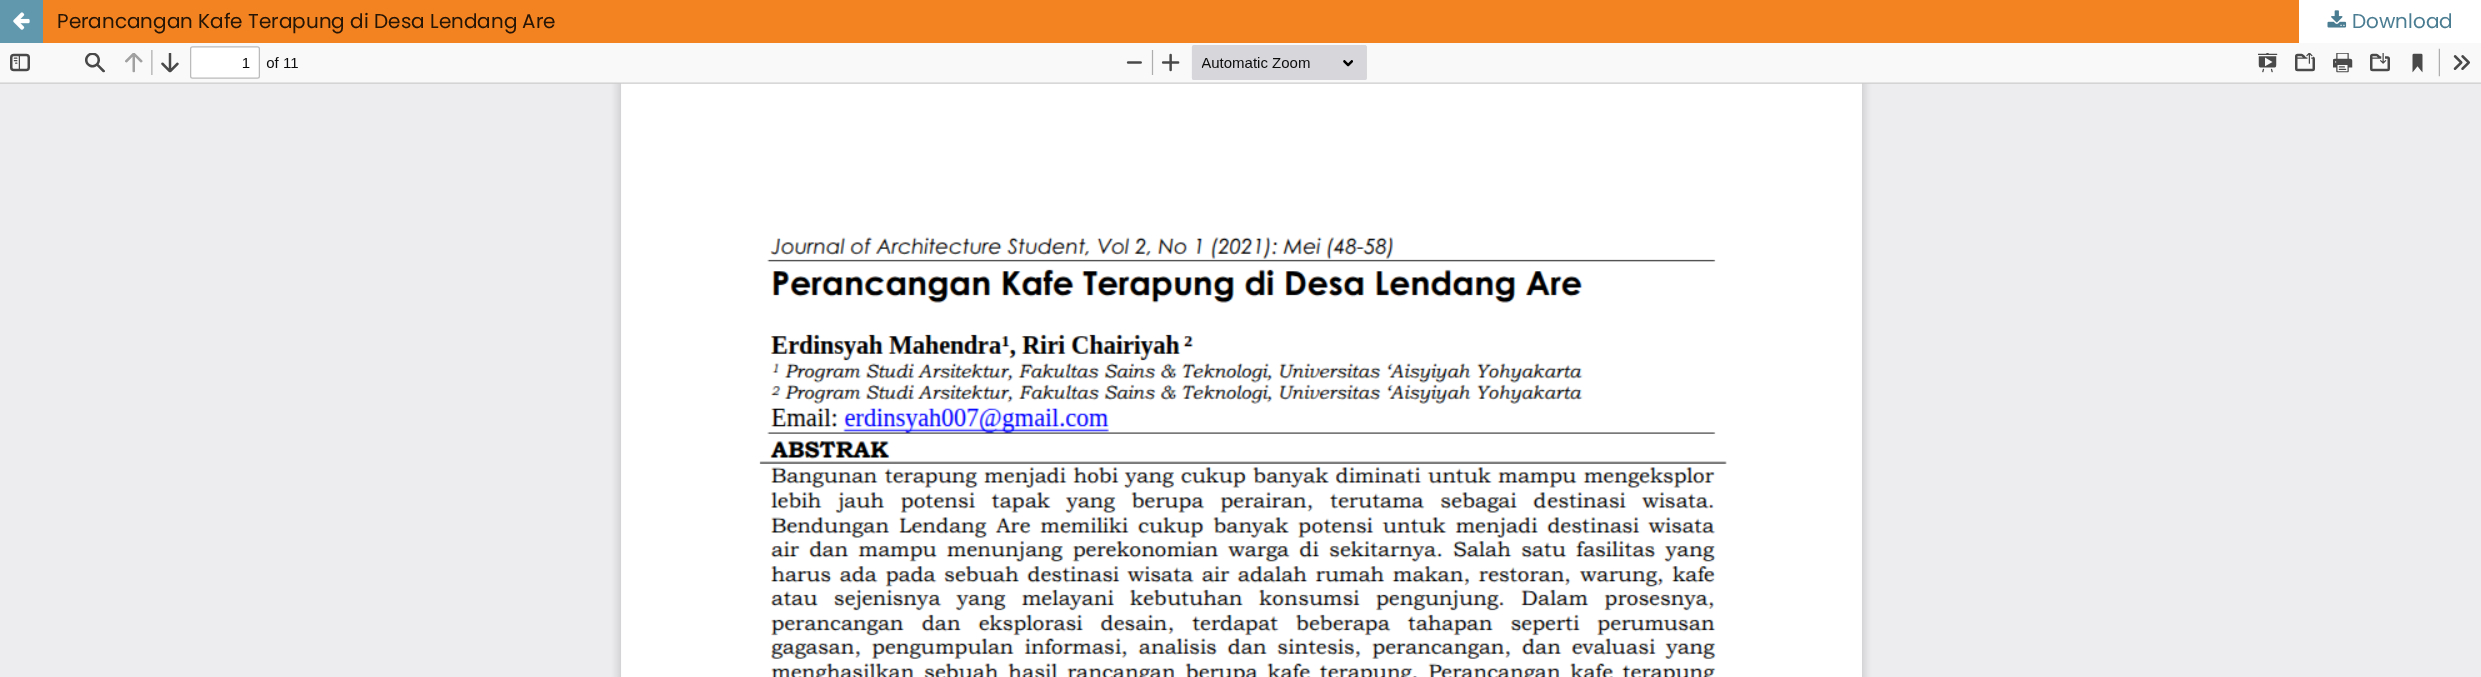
%!PS
<< /PageSize [2481 677] >> setpagedevice
/rgb { 3 { 255 div 3 1 roll } repeat setrgbcolor } def
/font { [ exch dup neg 0 0 3 -1 roll 0 0 ] selectfont } def
/picture { 5 dict begin { /h /w /y /x /name } { exch def } forall
  gsave x y translate w h scale
  w h 8 [w 0 0 h 0 0] name (r) file false 3 colorimage grestore end } def
0 677 translate 1 -1 scale
4 setmiterlimit
255 255 255 rgb
0 0 2481 677 rectfill
243 131 33 rgb
43 0 2256 43 rectfill
98 152 174 rgb
0 0 43 43 rectfill
(img/1.rgb) 13 12 17 18 picture
(img/2.rgb) 2327 10 20 18 picture
(img/3.rgb) 0 43 2481 634 picture
/Poppins-Regular 20 font
39 21 5 rgb
57 28 moveto (Perancangan Kafe Terapung di Desa Lendang Are) show
75 125 146 rgb
2352 28 moveto (Download) show
showpage
